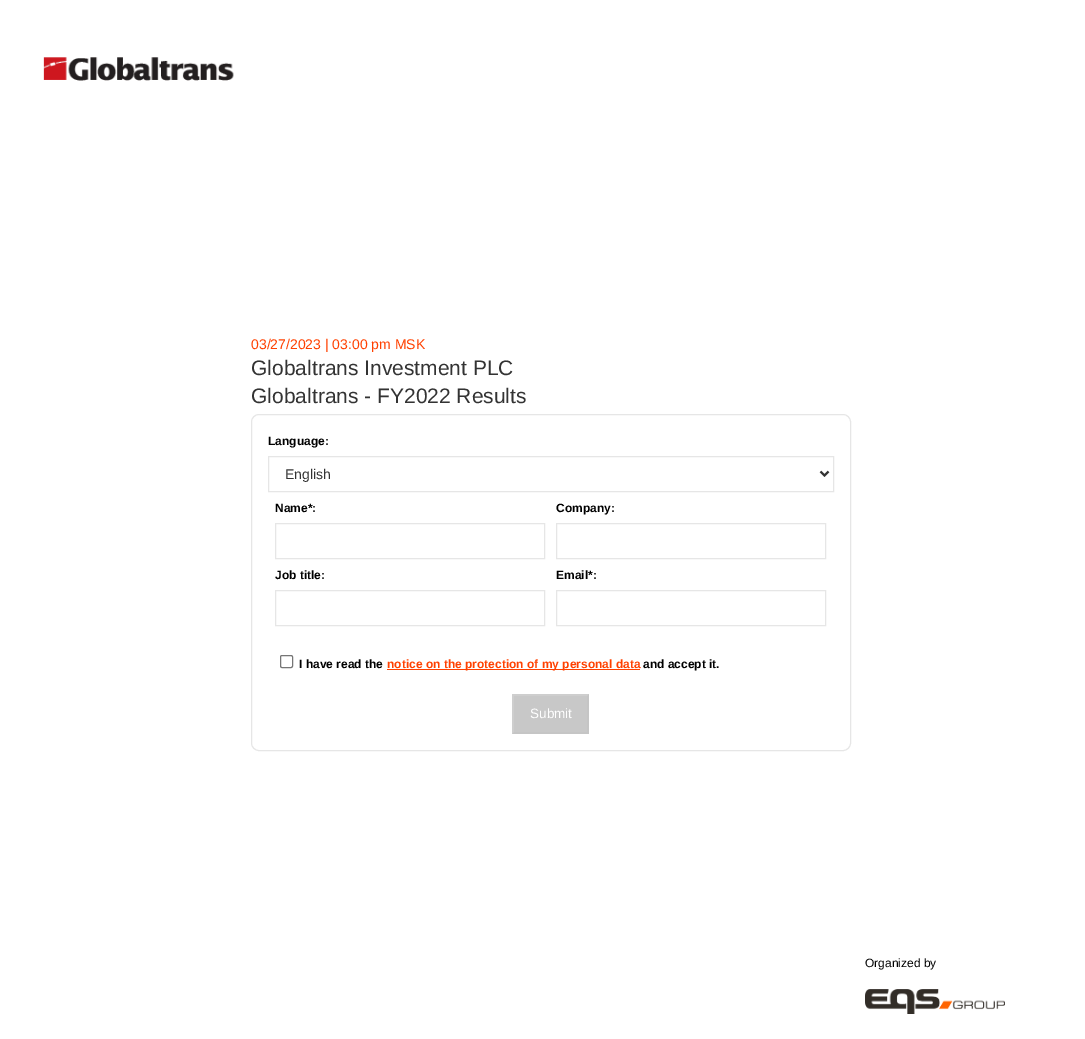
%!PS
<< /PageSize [1085 1039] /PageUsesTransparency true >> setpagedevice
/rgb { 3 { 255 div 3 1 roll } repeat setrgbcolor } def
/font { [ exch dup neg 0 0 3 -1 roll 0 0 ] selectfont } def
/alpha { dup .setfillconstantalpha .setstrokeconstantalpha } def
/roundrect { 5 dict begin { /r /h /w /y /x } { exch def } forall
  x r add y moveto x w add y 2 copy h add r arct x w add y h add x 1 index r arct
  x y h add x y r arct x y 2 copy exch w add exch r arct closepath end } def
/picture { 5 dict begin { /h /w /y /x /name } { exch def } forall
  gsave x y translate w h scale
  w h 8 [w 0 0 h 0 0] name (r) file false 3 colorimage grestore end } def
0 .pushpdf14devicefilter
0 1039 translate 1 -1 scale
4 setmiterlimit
255 255 255 rgb
0 0 1085 1039 rectfill
(img/1.rgb) 43 57 191 24 picture
230 230 230 rgb
251.5 414.5 599 336 7.5 roundrect stroke
268.5 456.5 565 35 rectstroke
51 51 51 rgb
2 setlinewidth
820.5 471.5 moveto 824.5 475.5 lineto 828.5 471.5 lineto stroke
230 230 230 rgb
1 setlinewidth
275.5 523.5 269 35 rectstroke
556.5 523.5 269 35 rectstroke
275.5 590.5 269 35 rectstroke
556.5 590.5 269 35 rectstroke
118 118 118 rgb
280.5 655.5 12 12 1.5 roundrect stroke
255 64 0 rgb
387 669 253 1 rectfill
200 200 200 rgb
512 694 77 40 rectfill
206 206 206 rgb
512 694 moveto 589 694 lineto 587 696 lineto 514 696 lineto closepath fill
0.1 alpha
170 170 170 rgb
589 694 moveto 589 734 lineto 587 732 lineto 587 696 lineto closepath fill
1 alpha
197 197 197 rgb
589 734 moveto 512 734 lineto 514 732 lineto 587 732 lineto closepath fill
0.1 alpha
255 255 255 rgb
512 734 moveto 512 694 lineto 514 696 lineto 514 732 lineto closepath fill
1 alpha
(img/2.rgb) 865 989 140 25 picture
/LiberationSans-Regular 14 font
255 64 0 rgb
251 349 moveto (03/27/2023 | 03:00 pm MSK) show
/LiberationSans-Regular 21 font
51 51 51 rgb
251 375 moveto (Globaltrans Investment PLC) show
251 403 moveto (Globaltrans - FY2022 Results) show
/LiberationSans-Bold 12 font
0 0 0 rgb
268 445 moveto (Language:) show
/LiberationSans-Regular 14 font
51 51 51 rgb
285 479 moveto (English) show
/LiberationSans-Bold 12 font
0 0 0 rgb
[
  [(Name*:) 275 512]
  [(Company:) 556 512]
  [(Job title:) 275 579]
  [(Email*:) 556 579]
  [(I have read the) 299 668]
] { aload pop moveto show } forall
255 64 0 rgb
387 668 moveto (notice on the protection of my personal data) show
0 0 0 rgb
643 668 moveto (and accept it.) show
/LiberationSans-Regular 13.5 font
255 255 255 rgb
530 718 moveto (Submit) show
/LiberationSans-Regular 12 font
0 0 0 rgb
865 967 moveto (Organized by) show
.poppdf14devicefilter showpage
